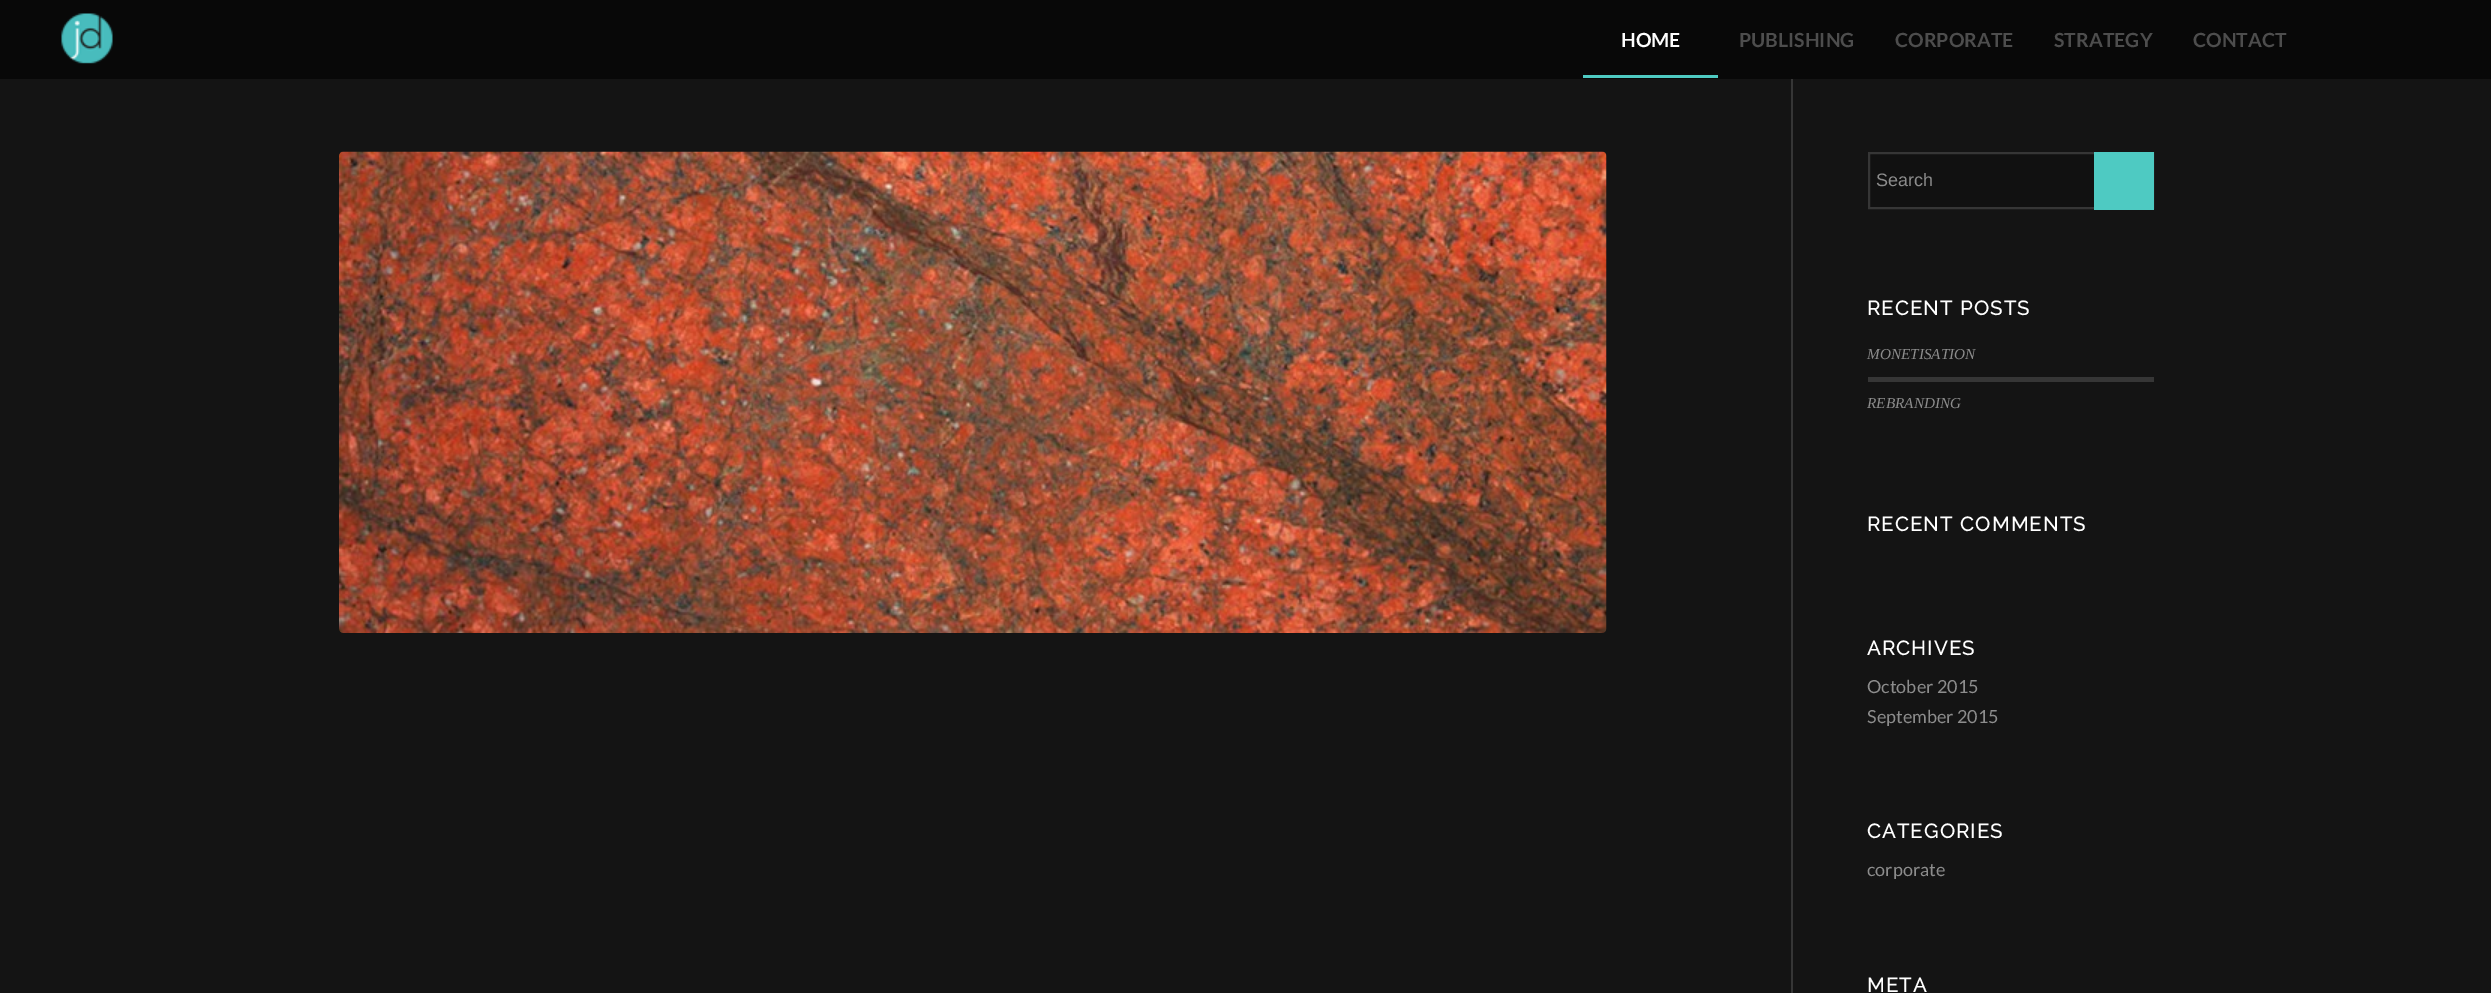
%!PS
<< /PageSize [2491 993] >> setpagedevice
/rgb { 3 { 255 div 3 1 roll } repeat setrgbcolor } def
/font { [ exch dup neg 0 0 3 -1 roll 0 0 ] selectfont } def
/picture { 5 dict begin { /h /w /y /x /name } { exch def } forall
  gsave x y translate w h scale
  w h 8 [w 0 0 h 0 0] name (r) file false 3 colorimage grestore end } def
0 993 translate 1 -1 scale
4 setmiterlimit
8 8 8 rgb
0 0 2491 993 rectfill
[
  [0 79 2491 914 20 20 20]
  [1791 77 2 916 54 54 54]
  [1791 77 2 2 8 8 8]
] { aload pop rgb rectfill } forall
(img/1.rgb) 61 13 52 51 picture
78 202 194 rgb
1583 75 135 3 rectfill
(img/2.rgb) 339 151 1268 482 picture
17 17 17 rgb
1870 154 224 53 rectfill
54 54 54 rgb
2 setlinewidth
1869 153 284 55 rectstroke
78 202 194 rgb
2094 152 60 58 rectfill
54 54 54 rgb
1868 377 286 5 rectfill
/Lato-Bold 19.5 font
255 255 255 rgb
1621 47 moveto (HOME) show
77 77 77 rgb
[
  [(PUBLISHING) 1739 47]
  [(CORPORATE) 1895 47]
  [(STRATEGY) 2054 47]
  [(CONTACT) 2193 47]
] { aload pop moveto show } forall
/LiberationSans-Regular 18 font
140 140 140 rgb
1876 186 moveto (Search) show
/Raleway-Bold 19.75 font
255 255 255 rgb
1867 315 moveto 1.5 0 (RECENT POSTS) ashow
/LiberationSerif-Italic 15.25 font
140 140 140 rgb
1867 359 moveto (MONETISATION) show
1867 408 moveto (REBRANDING) show
/Raleway-Bold 19.75 font
255 255 255 rgb
1867 531 moveto 1.5 0 (RECENT COMMENTS) ashow
1867 655 moveto 1.5 0 (ARCHIVES) ashow
/Lato-Regular 18 font
140 140 140 rgb
1867 693 moveto (October 2015) show
1867 723 moveto (September 2015) show
/Raleway-Bold 19.75 font
255 255 255 rgb
1867 838 moveto 1.5 0 (CATEGORIES) ashow
/Lato-Regular 18 font
140 140 140 rgb
1867 876 moveto (corporate) show
/Raleway-Bold 19.75 font
255 255 255 rgb
1867 992 moveto 1.5 0 (META) ashow
showpage
